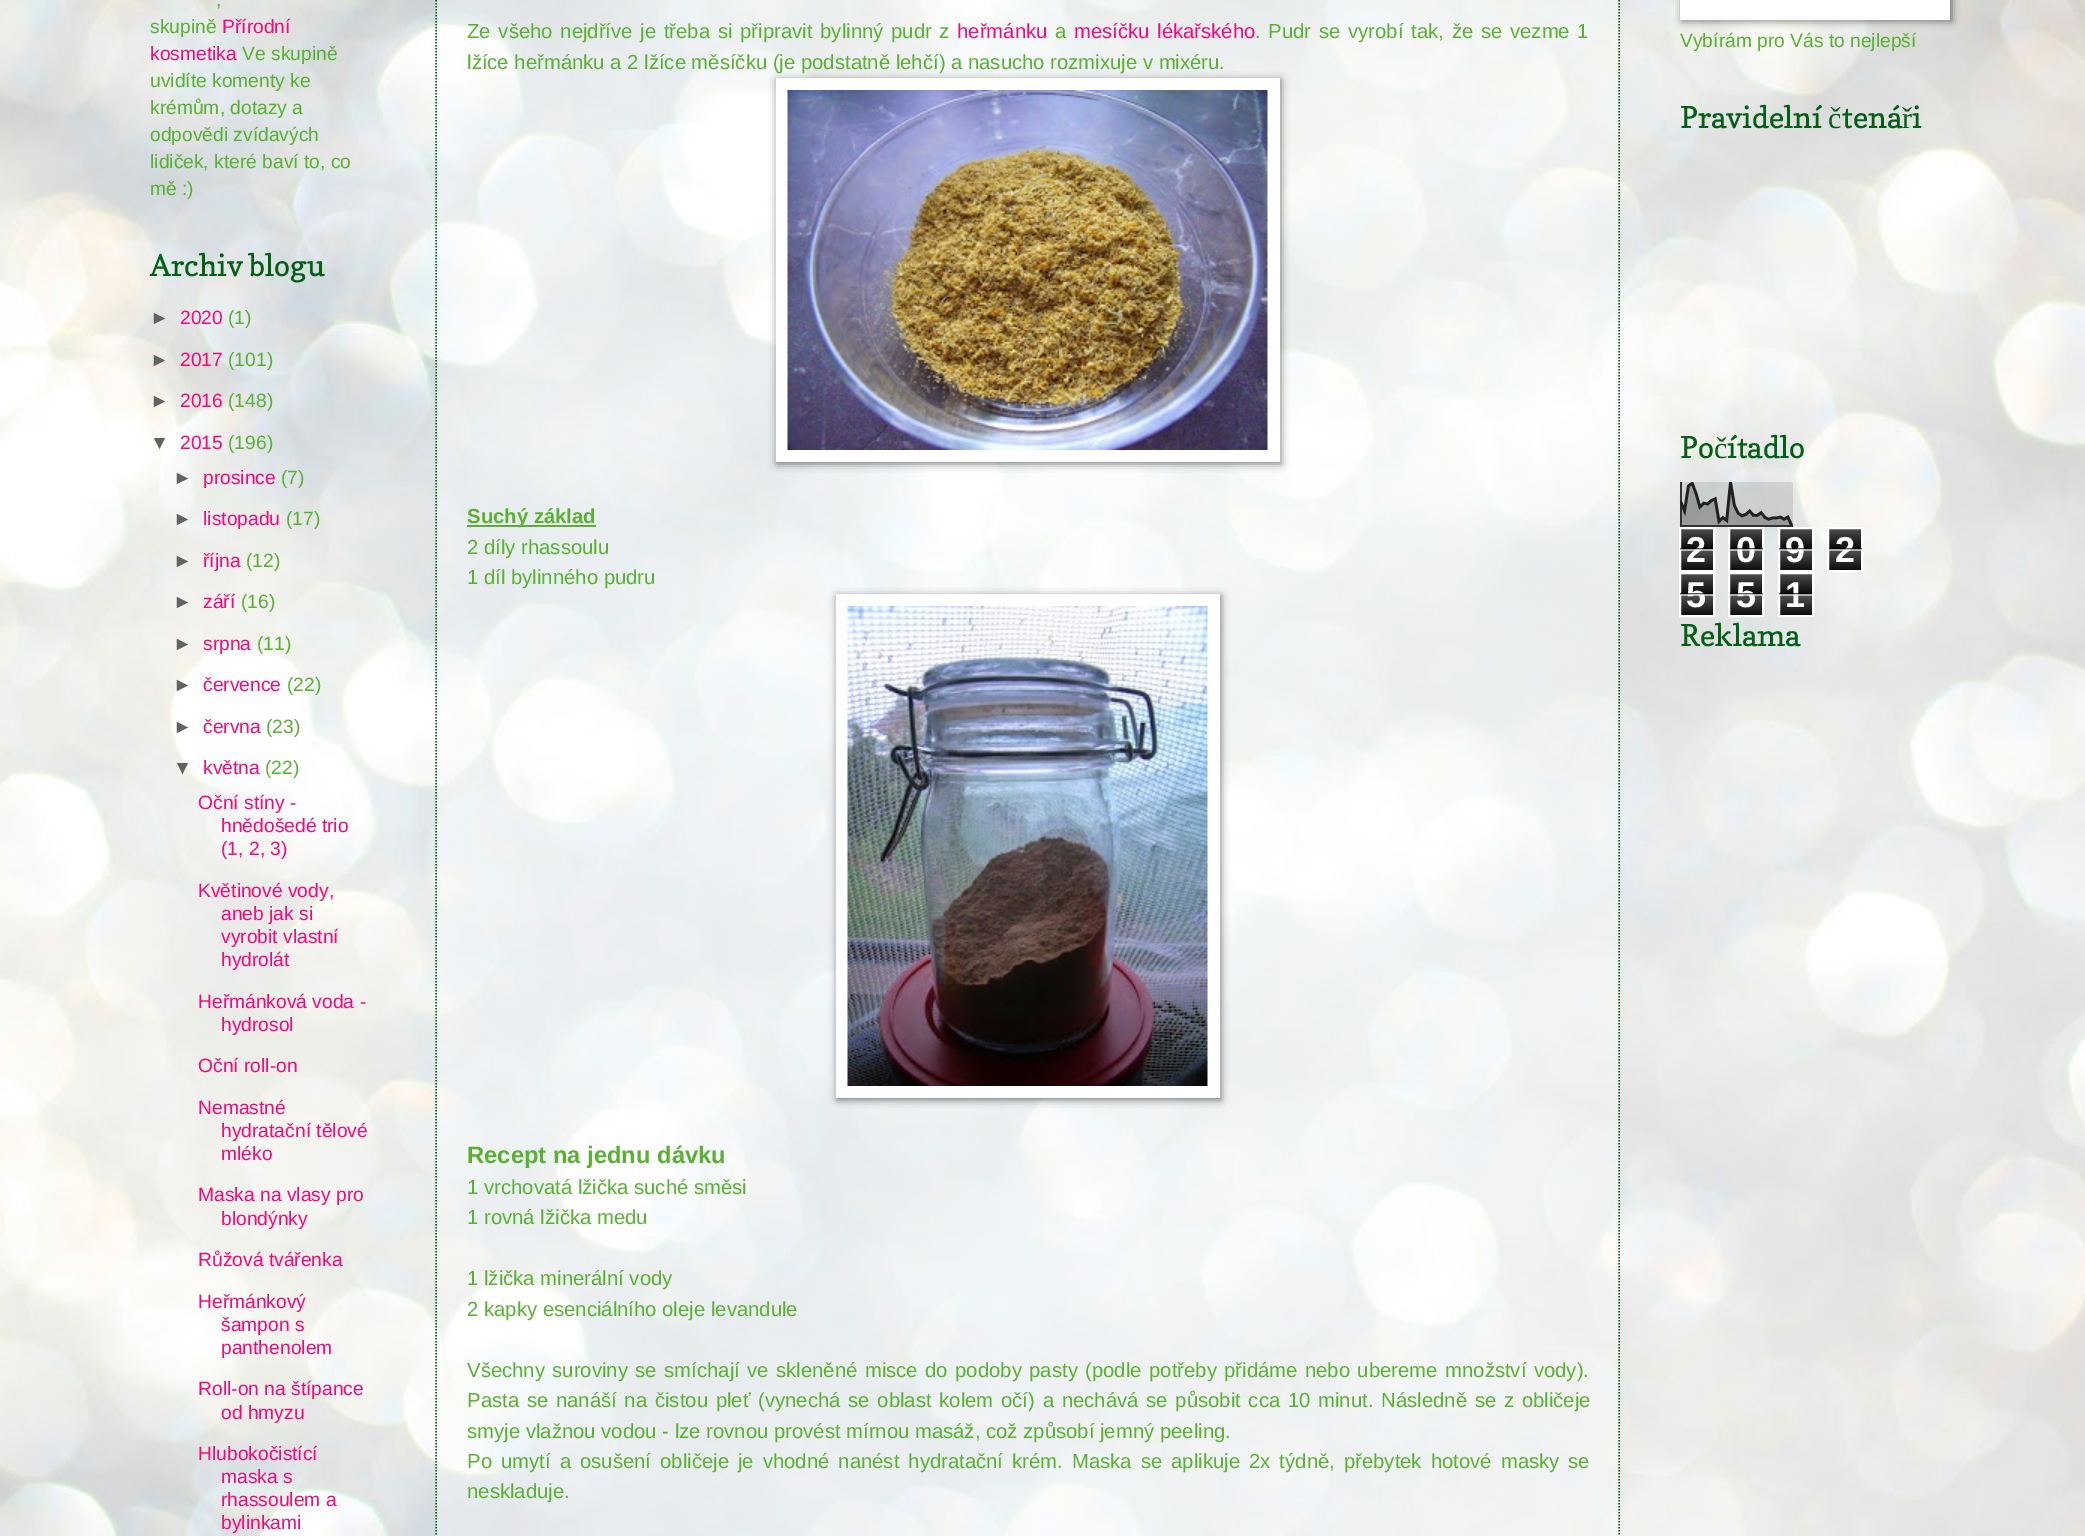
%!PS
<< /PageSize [2085 1536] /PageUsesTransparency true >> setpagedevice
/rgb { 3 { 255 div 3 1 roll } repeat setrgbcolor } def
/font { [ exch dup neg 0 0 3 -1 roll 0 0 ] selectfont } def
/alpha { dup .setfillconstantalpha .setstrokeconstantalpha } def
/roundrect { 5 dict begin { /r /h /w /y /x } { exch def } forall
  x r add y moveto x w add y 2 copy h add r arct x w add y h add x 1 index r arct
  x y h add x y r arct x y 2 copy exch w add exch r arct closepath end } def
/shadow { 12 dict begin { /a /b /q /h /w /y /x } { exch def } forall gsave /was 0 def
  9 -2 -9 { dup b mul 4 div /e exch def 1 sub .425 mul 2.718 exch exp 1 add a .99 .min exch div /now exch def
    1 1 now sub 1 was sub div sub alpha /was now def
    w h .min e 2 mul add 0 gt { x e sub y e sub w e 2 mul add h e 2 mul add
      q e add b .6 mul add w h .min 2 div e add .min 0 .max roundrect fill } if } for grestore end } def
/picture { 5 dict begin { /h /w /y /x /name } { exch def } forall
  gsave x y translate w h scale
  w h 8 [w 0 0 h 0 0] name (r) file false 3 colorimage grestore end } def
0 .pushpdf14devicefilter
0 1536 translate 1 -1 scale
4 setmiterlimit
255 255 255 rgb
0 0 2085 1536 rectfill
(img/1.rgb) 0 0 2085 1536 picture
0.4 alpha
435 0 1185 1536 rectfill
1 alpha
3 95 20 rgb
1.5 setlinewidth
[1.5 1.5] 0 setdash
1619 -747 moveto 1619 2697 lineto stroke
436 -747 moveto 436 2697 lineto stroke
0 0 0 rgb
777 80 504 384 0 4 0.5 shadow
255 255 255 rgb
776 78 504 384 rectfill
(img/2.rgb) 787 90 481 360 picture
89 176 51 rgb
467 525 129 2 rectfill
0 0 0 rgb
837 596 384 504 0 4 0.5 shadow
255 255 255 rgb
836 594 384 504 rectfill
(img/3.rgb) 847 606 361 480 picture
0 0 0 rgb
1682 -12 270 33 0 4 0.5 shadow
255 255 255 rgb
1680 0 270 20 rectfill
(img/4.rgb) 1680 482 113 45 picture
(img/5.rgb) 1681 529 32 41 picture
2 setlinewidth
[] 0 setdash
1680 528 34 43 rectstroke
(img/6.rgb) 1730 529 32 41 picture
1729 528 34 43 rectstroke
(img/5.rgb) 1780 529 32 41 picture
1779 528 34 43 rectstroke
(img/6.rgb) 1829 529 32 41 picture
1828 528 34 43 rectstroke
(img/5.rgb) 1681 574 32 41 picture
1680 573 34 43 rectstroke
(img/6.rgb) 1730 574 32 41 picture
1729 573 34 43 rectstroke
(img/5.rgb) 1780 574 32 41 picture
1779 573 34 43 rectstroke
/LiberationSans-Regular 19.25 font
89 176 51 rgb
216 6 moveto (,) show
150 33 moveto (skupině) show
242 10 124 rgb
222 33 moveto (Přírodní) show
150 60 moveto (kosmetika) show
89 176 51 rgb
[
  [(Ve skupině) 242 60]
  [(uvidíte komenty ke) 150 87]
  [(krémům, dotazy a) 150 114]
  [(odpovědi zvídavých) 150 141]
  [(lidiček, které baví to, co) 150 168]
  [(mě :\)) 150 195]
] { aload pop moveto show } forall
/Copse-Regular 30 font
3 95 20 rgb
150 276 moveto (Archiv blogu) show
/LiberationSans-Regular 19.25 font
98 98 98 rgb
150 324 moveto (►) show
242 10 124 rgb
180 324 moveto (2020) show
89 176 51 rgb
228 324 moveto (\(1\)) show
98 98 98 rgb
150 366 moveto (►) show
242 10 124 rgb
180 366 moveto (2017) show
89 176 51 rgb
228 366 moveto (\(101\)) show
98 98 98 rgb
150 407 moveto (►) show
242 10 124 rgb
180 407 moveto (2016) show
89 176 51 rgb
228 407 moveto (\(148\)) show
98 98 98 rgb
150 449 moveto (▼) show
242 10 124 rgb
180 449 moveto (2015) show
89 176 51 rgb
228 449 moveto (\(196\)) show
98 98 98 rgb
173 484 moveto (►) show
242 10 124 rgb
203 484 moveto (prosince) show
89 176 51 rgb
281 484 moveto (\(7\)) show
98 98 98 rgb
173 525 moveto (►) show
242 10 124 rgb
203 525 moveto (listopadu) show
89 176 51 rgb
286 525 moveto (\(17\)) show
98 98 98 rgb
173 567 moveto (►) show
242 10 124 rgb
203 567 moveto (října) show
89 176 51 rgb
246 567 moveto (\(12\)) show
98 98 98 rgb
173 608 moveto (►) show
242 10 124 rgb
203 608 moveto (září) show
89 176 51 rgb
241 608 moveto (\(16\)) show
98 98 98 rgb
173 650 moveto (►) show
242 10 124 rgb
203 650 moveto (srpna) show
89 176 51 rgb
257 650 moveto (\(11\)) show
98 98 98 rgb
173 691 moveto (►) show
242 10 124 rgb
203 691 moveto (července) show
89 176 51 rgb
287 691 moveto (\(22\)) show
98 98 98 rgb
173 733 moveto (►) show
242 10 124 rgb
203 733 moveto (června) show
89 176 51 rgb
266 733 moveto (\(23\)) show
98 98 98 rgb
173 774 moveto (▼) show
242 10 124 rgb
203 774 moveto (května) show
89 176 51 rgb
265 774 moveto (\(22\)) show
242 10 124 rgb
[
  [(Oční stíny -) 198 809]
  [(hnědošedé trio) 221 832]
  [(\(1, 2, 3\)) 221 855]
  [(Květinové vody,) 198 897]
  [(aneb jak si) 221 920]
  [(vyrobit vlastní) 221 943]
  [(hydrolát) 221 966]
  [(Heřmánková voda -) 198 1008]
  [(hydrosol) 221 1031]
  [(Oční roll-on) 198 1072]
  [(Nemastné) 198 1114]
  [(hydratační tělové) 221 1137]
  [(mléko) 221 1160]
  [(Maska na vlasy pro) 198 1201]
  [(blondýnky) 221 1225]
  [(Růžová tvářenka) 198 1266]
  [(Heřmánkový) 198 1308]
  [(šampon s) 221 1331]
  [(panthenolem) 221 1354]
  [(Roll-on na štípance) 198 1395]
  [(od hmyzu) 221 1419]
  [(Hlubokočistící) 198 1460]
  [(maska s) 221 1483]
  [(rhassoulem a) 221 1506]
  [(bylinkami) 221 1529]
] { aload pop moveto show } forall
/LiberationSans-Regular 20.3 font
89 176 51 rgb
467 38 moveto 2.1 0 32 (Ze všeho nejdříve je třeba si připravit bylinný pudr z) widthshow
242 10 124 rgb
957 38 moveto (heřmánku) show
89 176 51 rgb
1055 38 moveto (a) show
242 10 124 rgb
1074 38 moveto 2 0 32 (mesíčku lékařského) widthshow
89 176 51 rgb
1255 38 moveto 2.1 0 32 (. Pudr se vyrobí tak, že se vezme 1) widthshow
467 69 moveto (lžíce heřmánku a 2 lžíce měsíčku \(je podstatně lehčí\) a nasucho rozmixuje v mixéru.) show
/LiberationSans-Bold 20.3 font
467 523 moveto (Suchý základ) show
/LiberationSans-Regular 20.3 font
467 554 moveto (2 díly rhassoulu) show
467 584 moveto (1 díl bylinného pudru) show
/LiberationSans-Bold 23.75 font
467 1163 moveto (Recept na jednu dávku) show
/LiberationSans-Regular 20.3 font
[
  [(1 vrchovatá lžička suché směsi) 467 1194]
  [(1 rovná lžička medu) 467 1224]
  [(1 lžička minerální vody) 467 1285]
  [(2 kapky esenciálního oleje levandule) 467 1316]
] { aload pop moveto show } forall
467 1377 moveto 1.8 0 32 (Všechny suroviny se smíchají ve skleněné misce do podoby pasty \(podle potřeby přidáme nebo ubereme množství vody\).) widthshow
467 1407 moveto 2.1 0 32 (Pasta se nanáší na čistou pleť \(vynechá se oblast kolem očí\) a nechává se působit cca 10 minut. Následně se z obličeje) widthshow
467 1438 moveto (smyje vlažnou vodou - lze rovnou provést mírnou masáž, což způsobí jemný peeling.) show
467 1468 moveto 3.4 0 32 (Po umytí a osušení obličeje je vhodné nanést hydratační krém. Maska se aplikuje 2x týdně, přebytek hotové masky se) widthshow
467 1498 moveto (neskladuje.) show
/LiberationSans-Regular 19.25 font
1680 47 moveto (Vybírám pro Vás to nejlepší) show
/Copse-Regular 30 font
3 95 20 rgb
1680 128 moveto (Pravidelní) show
/LiberationSerif-Regular 30 font
1828 128 moveto (č) show
/Copse-Regular 30 font
1842 128 moveto (tená) show
/LiberationSerif-Regular 30 font
1902 128 moveto (ř) show
/Copse-Regular 30 font
1912 128 moveto (i) show
1680 458 moveto (Po) show
/LiberationSerif-Regular 30 font
1714 458 moveto (č) show
/Copse-Regular 30 font
1727 458 moveto (ítadlo) show
/LiberationSans-Bold 36 font
255 255 255 rgb
1686 562 moveto (2) show
0.65 alpha
0 0 0 rgb
1680 548 33 2 rectfill
255 255 255 rgb
1680 549 33 2 rectfill
1 alpha
1736 562 moveto (0) show
0.65 alpha
0 0 0 rgb
1730 548 33 2 rectfill
255 255 255 rgb
1730 549 33 2 rectfill
1 alpha
1785 562 moveto (9) show
0.65 alpha
0 0 0 rgb
1779 548 33 2 rectfill
255 255 255 rgb
1779 549 33 2 rectfill
1 alpha
1835 562 moveto (2) show
0.65 alpha
0 0 0 rgb
1829 548 33 2 rectfill
255 255 255 rgb
1829 549 33 2 rectfill
1 alpha
1686 607 moveto (5) show
0.65 alpha
0 0 0 rgb
1680 593 33 2 rectfill
255 255 255 rgb
1680 594 33 2 rectfill
1 alpha
1736 607 moveto (5) show
0.65 alpha
0 0 0 rgb
1730 593 33 2 rectfill
255 255 255 rgb
1730 594 33 2 rectfill
1 alpha
1785 607 moveto (1) show
0.65 alpha
0 0 0 rgb
1779 593 33 2 rectfill
255 255 255 rgb
1779 594 33 2 rectfill
/Copse-Regular 30 font
1 alpha
3 95 20 rgb
1680 646 moveto (Reklama) show
.poppdf14devicefilter showpage
